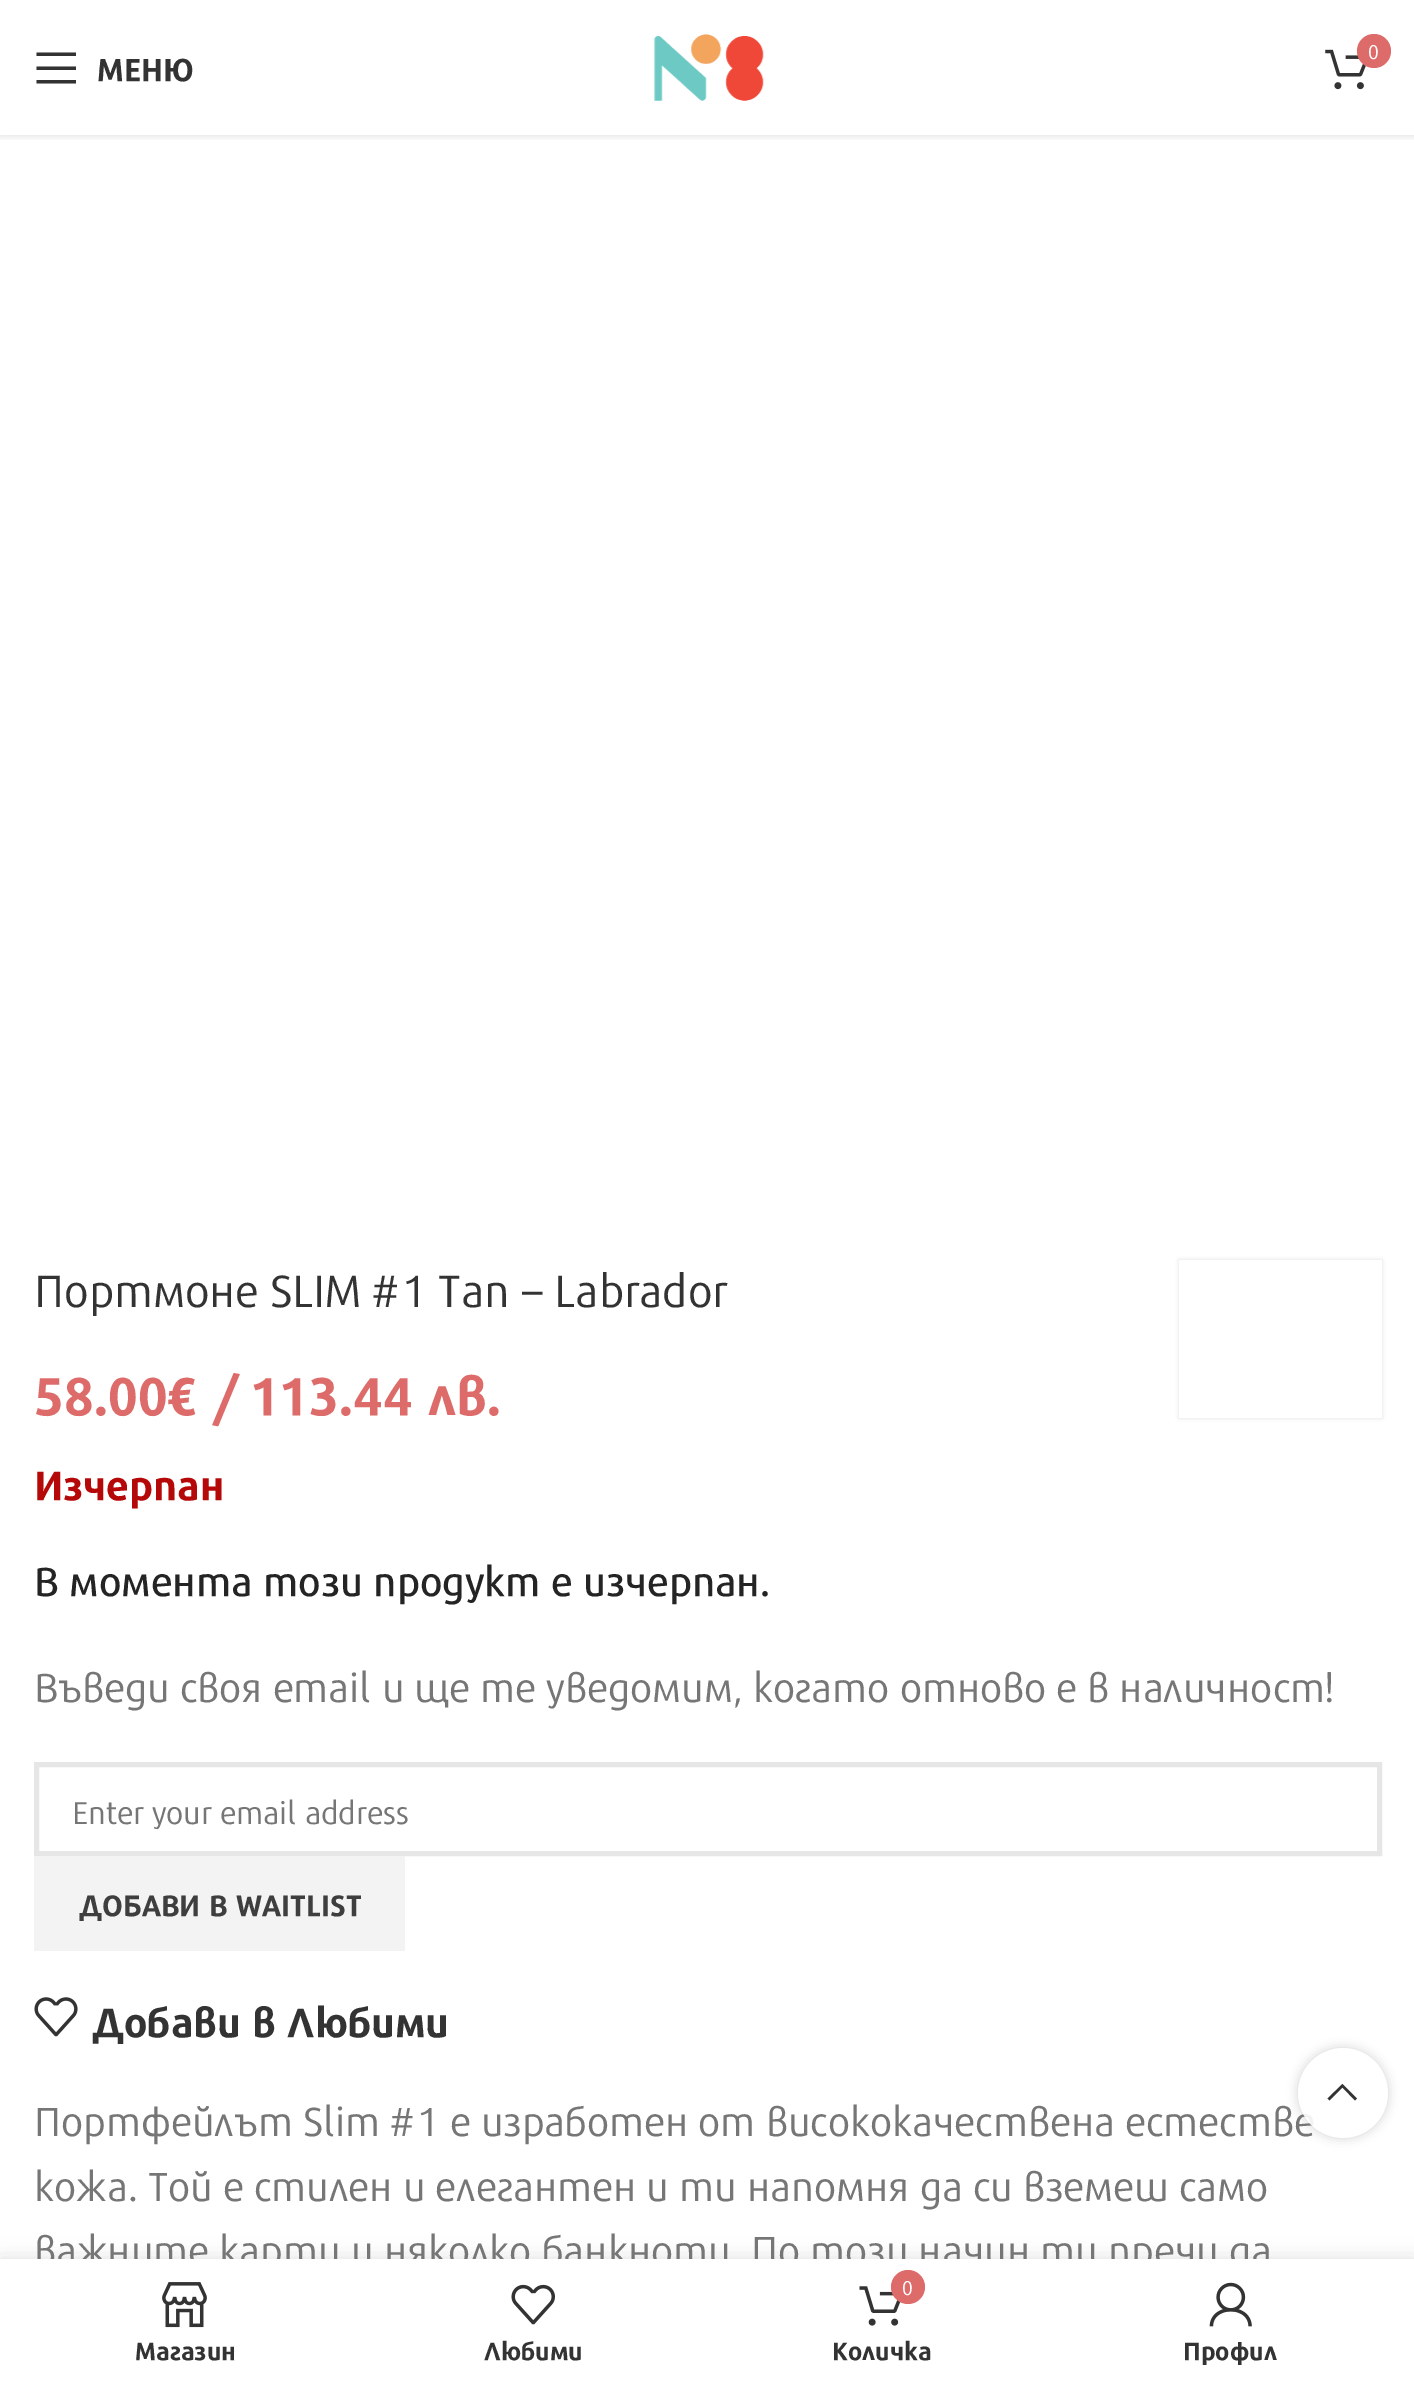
%!PS
<< /PageSize [1414 2381] /PageUsesTransparency true >> setpagedevice
/rgb { 3 { 255 div 3 1 roll } repeat setrgbcolor } def
/font { [ exch dup neg 0 0 3 -1 roll 0 0 ] selectfont } def
/alpha { dup .setfillconstantalpha .setstrokeconstantalpha } def
/circle { newpath 0 360 arc closepath } def
/roundrect { 5 dict begin { /r /h /w /y /x } { exch def } forall
  x r add y moveto x w add y 2 copy h add r arct x w add y h add x 1 index r arct
  x y h add x y r arct x y 2 copy exch w add exch r arct closepath end } def
/shadow { 12 dict begin { /a /b /q /h /w /y /x } { exch def } forall gsave /was 0 def
  9 -2 -9 { dup b mul 4 div /e exch def 1 sub .425 mul 2.718 exch exp 1 add a .99 .min exch div /now exch def
    1 1 now sub 1 was sub div sub alpha /was now def
    w h .min e 2 mul add 0 gt { x e sub y e sub w e 2 mul add h e 2 mul add
      q e add b .6 mul add w h .min 2 div e add .min 0 .max roundrect fill } if } for grestore end } def
/picture { 5 dict begin { /h /w /y /x /name } { exch def } forall
  gsave x y translate w h scale
  w h 8 [w 0 0 h 0 0] name (r) file false 3 colorimage grestore end } def
0 .pushpdf14devicefilter
0 2381 translate 1 -1 scale
4 setmiterlimit
255 255 255 rgb
0 0 1414 2381 rectfill
gsave
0 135 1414 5 rectclip
0 0 0 rgb
0 2 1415 135 0 3.5 0.1 shadow
grestore
(img/1.rgb) 654 34 110 67 picture
(img/2.rgb) 1325 49 41 41 picture
220 107 105 rgb
1374 51 17 circle fill
51 51 51 rgb
36.5 56 moveto 76 56 lineto 76 52.5 lineto 36.5 52.5 lineto closepath 36.5 70 moveto 76 70 lineto 76 66.5 lineto 36.5 66.5 lineto closepath 36.5 83.5 moveto 76 83.5 lineto 76 80 lineto 36.5 80 lineto closepath fill
0 0 0 rgb
1179 1260 203 158 0 2 0.12 shadow
255 255 255 rgb
1179 1260 203 158 rectfill
230 230 230 rgb
5 setlinewidth
36.5 1764.5 1343 89 rectstroke
243 243 243 rgb
34 1856 371 95 rectfill
(img/3.rgb) 34 1997 44 40 picture
gsave
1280 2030 moveto 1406 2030 lineto 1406 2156 lineto 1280 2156 lineto closepath 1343 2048 moveto 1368 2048 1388 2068 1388 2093 curveto 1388 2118 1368 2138 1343 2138 curveto 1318 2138 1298 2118 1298 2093 curveto 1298 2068 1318 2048 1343 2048 curveto closepath eoclip newpath
0 0 0 rgb
1298 2048 90 90 45 5.5 0.17 shadow
grestore
0 0 0 rgb
0 2259 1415 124 0 10 0.12 shadow
/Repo-Regular 20 font
255 255 255 rgb
1368 59 moveto (0) show
/Repo-Bold 31.5 font
51 51 51 rgb
97 81 moveto (МЕНЮ) show
/Repo-Regular 45 font
34 1307 moveto (Портмоне SLIM #1 Tan – Labrador) show
/Repo-Bold 52.75 font
220 107 105 rgb
34 1415 moveto (58.00€ / 113.44 лв.) show
/Repo-Bold 40.5 font
181 8 8 rgb
34 1500 moveto (Изчерпан) show
/Repo-Medium 40.5 font
36 36 36 rgb
34 1596 moveto (В момента този продукт е изчерпан.) show
/Repo-Regular 40.5 font
118 118 118 rgb
34 1702 moveto (Въведи своя email и ще те уведомим, когато отново е в наличност!) show
/Repo-Regular 31.5 font
72 1824 moveto (Enter your email address) show
/Repo-Bold 29.25 font
62 62 62 rgb
79 1916 moveto (ДОБАВИ В WAITLIST) show
/Repo-Bold 40.5 font
51 51 51 rgb
92 2037 moveto (Добави в Любими) show
/Repo-Regular 40.5 font
118 118 118 rgb
[
  [(Портфейлът Slim #1 е изработен от висококачествена естестве) 34 2136]
  [(кожа. Той е стилен и елегантен и ти напомня да си вземеш само) 34 2201]
  [(важните карти и няколко банкноти. По този начин ти пречи да) 34 2265]
] { aload pop moveto show } forall
0.9 alpha
255 255 255 rgb
1343 2093 45 circle fill
1 alpha
51 51 51 rgb
1355 2100.5 moveto 1357 2098.5 lineto 1342.5 2084 lineto 1327.5 2098.5 lineto 1329.5 2100.5 lineto 1342.5 2087.5 lineto closepath fill
255 255 255 rgb
0 2259 1414 122 rectfill
(img/4.rgb) 162 2282 45 46 picture
/Repo-Bold 24.75 font
51 51 51 rgb
135 2360 moveto (Магазин) show
(img/5.rgb) 511 2284 44 41 picture
484 2360 moveto (Любими) show
(img/6.rgb) 859 2286 42 40 picture
220 107 105 rgb
908 2287 17 circle fill
/Repo-Regular 20 font
255 255 255 rgb
902 2295 moveto (0) show
/Repo-Bold 24.75 font
51 51 51 rgb
832 2360 moveto (Количка) show
(img/7.rgb) 1209 2282 43 45 picture
gsave
1078 2336 304 29 rectclip
1183 2360 moveto (Профил) show
grestore
.poppdf14devicefilter showpage
